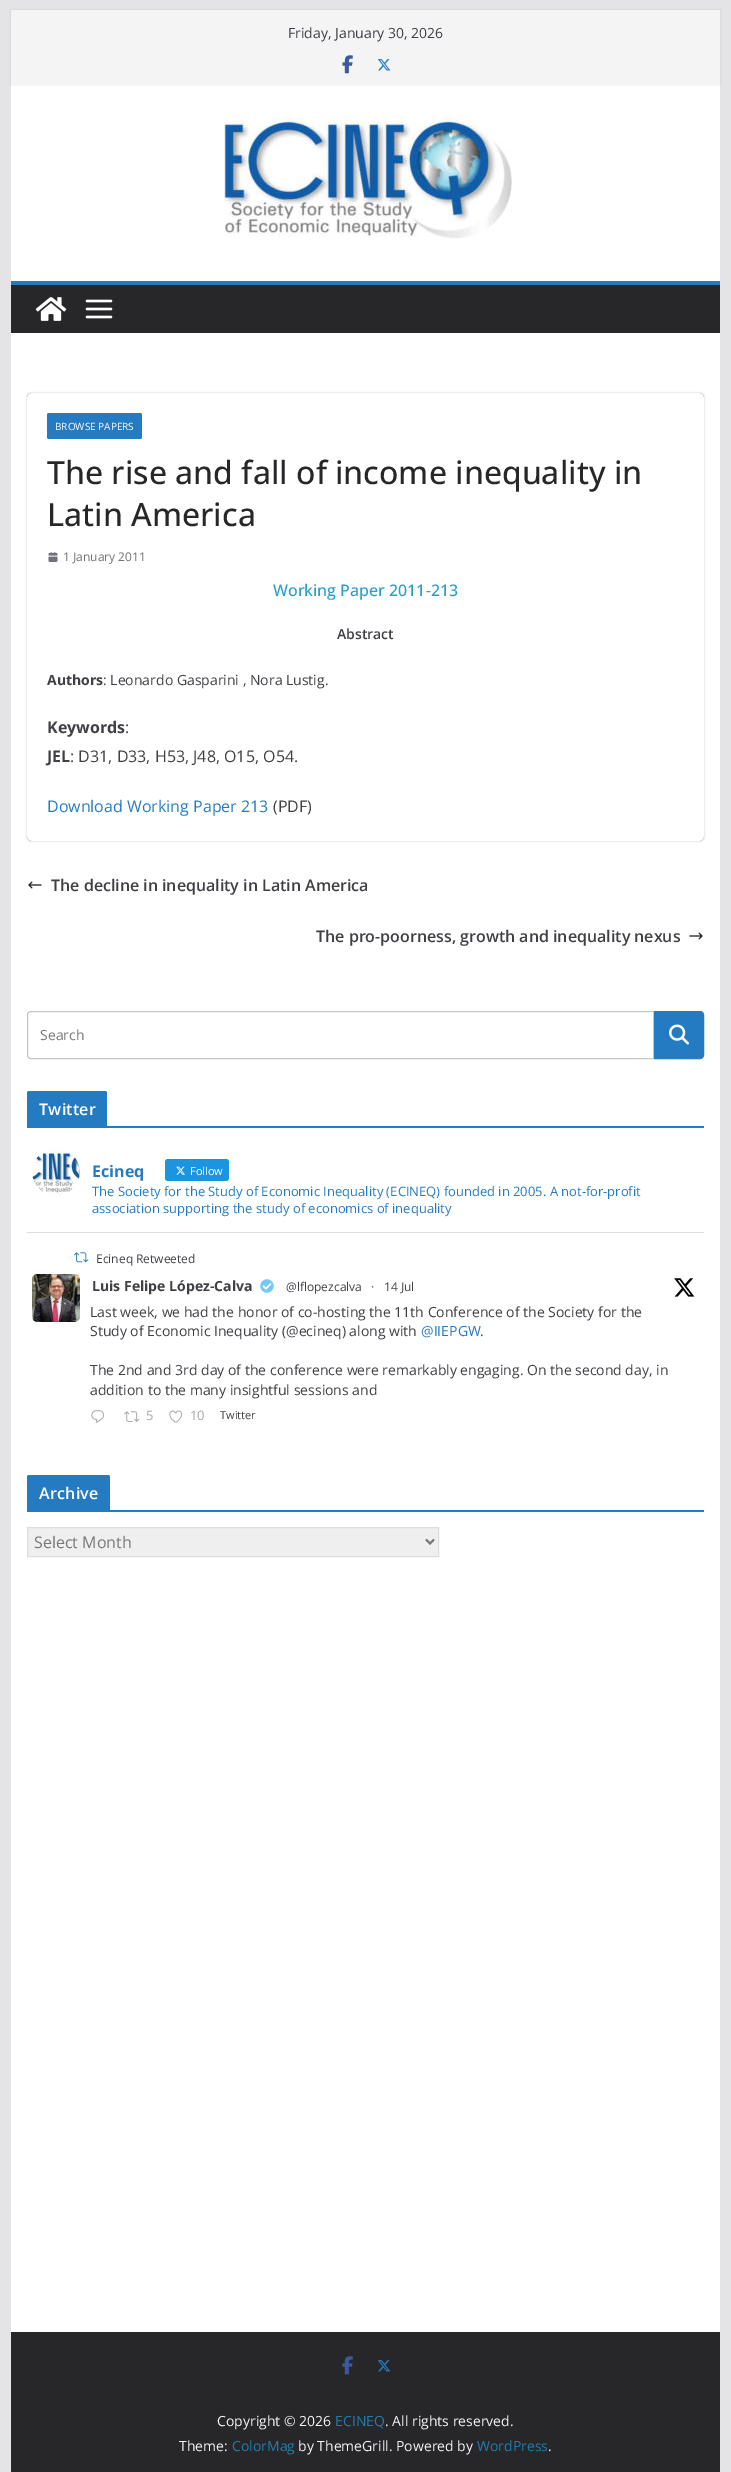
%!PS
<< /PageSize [731 2472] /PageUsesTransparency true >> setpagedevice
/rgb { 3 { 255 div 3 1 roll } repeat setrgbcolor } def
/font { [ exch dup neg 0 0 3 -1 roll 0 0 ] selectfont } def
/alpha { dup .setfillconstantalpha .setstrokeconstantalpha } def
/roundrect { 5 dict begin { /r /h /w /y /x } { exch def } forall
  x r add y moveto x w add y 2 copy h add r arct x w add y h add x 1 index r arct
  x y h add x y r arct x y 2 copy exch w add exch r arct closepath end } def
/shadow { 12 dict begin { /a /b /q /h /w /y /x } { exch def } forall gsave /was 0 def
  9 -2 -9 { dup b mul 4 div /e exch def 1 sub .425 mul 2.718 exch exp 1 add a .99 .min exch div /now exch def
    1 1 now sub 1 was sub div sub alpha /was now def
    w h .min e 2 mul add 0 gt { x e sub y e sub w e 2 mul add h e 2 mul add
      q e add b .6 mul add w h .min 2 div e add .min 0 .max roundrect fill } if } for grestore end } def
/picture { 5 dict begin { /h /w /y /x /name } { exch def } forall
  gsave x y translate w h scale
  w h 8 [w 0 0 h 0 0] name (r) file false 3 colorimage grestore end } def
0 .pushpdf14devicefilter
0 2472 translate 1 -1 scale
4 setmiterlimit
228 228 231 rgb
0 0 731 2472 rectfill
255 255 255 rgb
11 85 709 196 rectfill
0 0 0 rgb
11 10 709 75 0 1 0.1 shadow
244 244 245 rgb
11 10 709 75 rectfill
(img/1.rgb) 342 55 11 19 picture
(img/2.rgb) 377 59 14 12 picture
(img/3.rgb) 224 117 288 122 picture
39 39 42 rgb
11 285 709 48 rectfill
37 123 193 rgb
11 281 709 4 rectfill
(img/4.rgb) 35 297 32 24 picture
(img/5.rgb) 85 299 28 20 picture
255 255 255 rgb
11 333 709 1999 rectfill
gsave
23 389 moveto 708 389 lineto 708 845 lineto 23 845 lineto closepath 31 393 moveto 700 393 lineto 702 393 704 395 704 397 curveto 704 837 lineto 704 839 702 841 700 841 curveto 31 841 lineto 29 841 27 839 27 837 curveto 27 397 lineto 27 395 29 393 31 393 curveto closepath eoclip newpath
0 0 0 rgb
27 393 677 448 4 1 0.24 shadow
grestore
37 123 193 rgb
47 413 95 26 2 roundrect fill
(img/6.rgb) 48 552 10 10 picture
(img/7.rgb) 28 881 14 8 picture
(img/8.rgb) 689 932 14 8 picture
199 199 199 rgb
31 1011.5 moveto 653.5 1011.5 lineto 653.5 1058.5 lineto 31 1058.5 lineto 29 1058.5 27.5 1057 27.5 1055 curveto 27.5 1015 lineto 27.5 1013 29 1011.5 31 1011.5 curveto closepath stroke
37 123 193 rgb
654.5 1011.5 moveto 700 1011.5 lineto 702 1011.5 703.5 1013 703.5 1015 curveto 703.5 1055 lineto 703.5 1057 702 1058.5 700 1058.5 curveto 654.5 1058.5 lineto closepath gsave fill grestore
stroke
(img/9.rgb) 669 1024 20 21 picture
27 1126 677 2 rectfill
29 1091 moveto 105 1091 lineto 106 1091 107 1092 107 1093 curveto 107 1126 lineto 27 1126 lineto 27 1093 lineto 27 1092 28 1091 29 1091 curveto closepath fill
221 221 221 rgb
27 1232 677 1 rectfill
(img/10.rgb) 32 1148 48 48 picture
27 149 224 rgb
165 1159 64 22 3 roundrect fill
(img/11.rgb) 176 1166 9 9 picture
(img/12.rgb) 74 1252 15 11 picture
(img/13.rgb) 32 1274 48 48 picture
(img/14.rgb) 260 1279 14 14 picture
(img/15.rgb) 674 1278 21 19 picture
(img/16.rgb) 91 1410 13 13 picture
(img/17.rgb) 124 1411 16 11 picture
(img/18.rgb) 169 1410 14 13 picture
37 123 193 rgb
27 1510 677 2 rectfill
29 1475 moveto 108 1475 lineto 109 1475 110 1476 110 1477 curveto 110 1510 lineto 27 1510 lineto 27 1477 lineto 27 1476 28 1475 29 1475 curveto closepath fill
239 239 239 rgb
27.5 1527.5 moveto 438.5 1527.5 lineto 438.5 1556.5 lineto 27.5 1556.5 lineto closepath gsave fill grestore
221 221 221 rgb
stroke
119 119 119 rgb
2 setlinewidth
426 1539.5 moveto 430 1543.5 lineto 434 1539.5 lineto stroke
39 39 42 rgb
11 2332 709 140 rectfill
(img/19.rgb) 342 2356 11 19 picture
(img/20.rgb) 377 2360 14 12 picture
/OpenSans-Regular 14 font
63 63 70 rgb
288 38 moveto (Friday, January 30, 2026) show
/OpenSans-Regular 10 font
255 255 255 rgb
55 430 moveto (BROWSE PAPERS) show
/OpenSans-Medium 32 font
39 39 42 rgb
47 484 moveto (The rise and fall of income inequality in) show
47 526 moveto (Latin America) show
/OpenSans-Regular 12 font
113 113 122 rgb
63 561 moveto (1 January 2011) show
/OpenSans-Medium 16 font
40 157 204 rgb
273 596 moveto (Working Paper 2011-213) show
/OpenSans-SemiBold 14 font
63 63 70 rgb
337 639 moveto (Abstract) show
/OpenSans-Bold 14 font
47 685 moveto (Authors) show
/OpenSans-Regular 14 font
103 685 moveto (: Leonardo Gasparini , Nora Lustig.) show
/OpenSans-Bold 16 font
47 733 moveto (Keywords) show
/OpenSans-Regular 16 font
125 733 moveto (:) show
/OpenSans-Bold 16 font
47 762 moveto (JEL) show
/OpenSans-Regular 16 font
70 762 moveto (: D31, D33, H53, J48, O15, O54.) show
37 123 193 rgb
47 812 moveto (Download Working Paper 213) show
63 63 70 rgb
273 812 moveto (\(PDF\)) show
/OpenSans-SemiBold 16 font
51 891 moveto (The decline in inequality in Latin America) show
316 942 moveto (The pro-poorness, growth and inequality nexus) show
/OpenSans-Regular 14 font
119 119 119 rgb
40 1040 moveto (Search) show
/OpenSans-SemiBold 16 font
255 255 255 rgb
39 1115 moveto 0.25 0 (Twitter) ashow
/OpenSans-Bold 16 font
37 123 193 rgb
92 1177 moveto (Ecineq) show
/OpenSans-Regular 11 font
255 255 255 rgb
190 1175 moveto (Follow) show
/OpenSans-Regular 13 font
37 123 193 rgb
92 1196 moveto (The Society for the Study of Economic Inequality \(ECINEQ\) founded in 2005. A not-for-profit) show
92 1213 moveto (association supporting the study of economics of inequality) show
/OpenSans-Regular 12 font
63 63 70 rgb
96 1263 moveto (Ecineq Retweeted) show
/OpenSans-Bold 14 font
92 1291 moveto (Luis Felipe López-Calva) show
/OpenSans-Regular 12 font
[
  [(@lflopezcalva) 286 1291]
  [(·) 371 1291]
  [(14 Jul) 384 1291]
] { aload pop moveto show } forall
/OpenSans-Regular 14 font
90 1317 moveto (Last week, we had the honor of co-hosting the 11th Conference of the Society for the) show
90 1336 moveto (Study of Economic Inequality \(@ecineq\) along with) show
37 123 193 rgb
421 1336 moveto (@IIEPGW) show
63 63 70 rgb
[
  [(.) 480 1336]
  [(The 2nd and 3rd day of the conference were remarkably engaging. On the second day, in) 90 1375]
  [(addition to the many insightful sessions and) 90 1395]
] { aload pop moveto show } forall
/OpenSans-Regular 13 font
166 166 166 rgb
146 1420 moveto (5) show
190 1420 moveto (10) show
/OpenSans-Regular 11 font
63 63 70 rgb
220 1419 moveto (Twitter) show
/OpenSans-SemiBold 16 font
255 255 255 rgb
39 1499 moveto 0.25 0 (Archive) ashow
/OpenSans-Regular 16 font
119 119 119 rgb
34 1548 moveto (Select Month) show
/OpenSans-Regular 14 font
244 244 245 rgb
217 2426 moveto (Copyright © 2026) show
32 125 175 rgb
335 2426 moveto (ECINEQ) show
244 244 245 rgb
385 2426 moveto (. All rights reserved.) show
179 2451 moveto (Theme:) show
32 125 175 rgb
232 2451 moveto (ColorMag) show
244 244 245 rgb
298 2451 moveto (by ThemeGrill. Powered by) show
32 125 175 rgb
477 2451 moveto (WordPress) show
244 244 245 rgb
548 2451 moveto (.) show
.poppdf14devicefilter showpage
